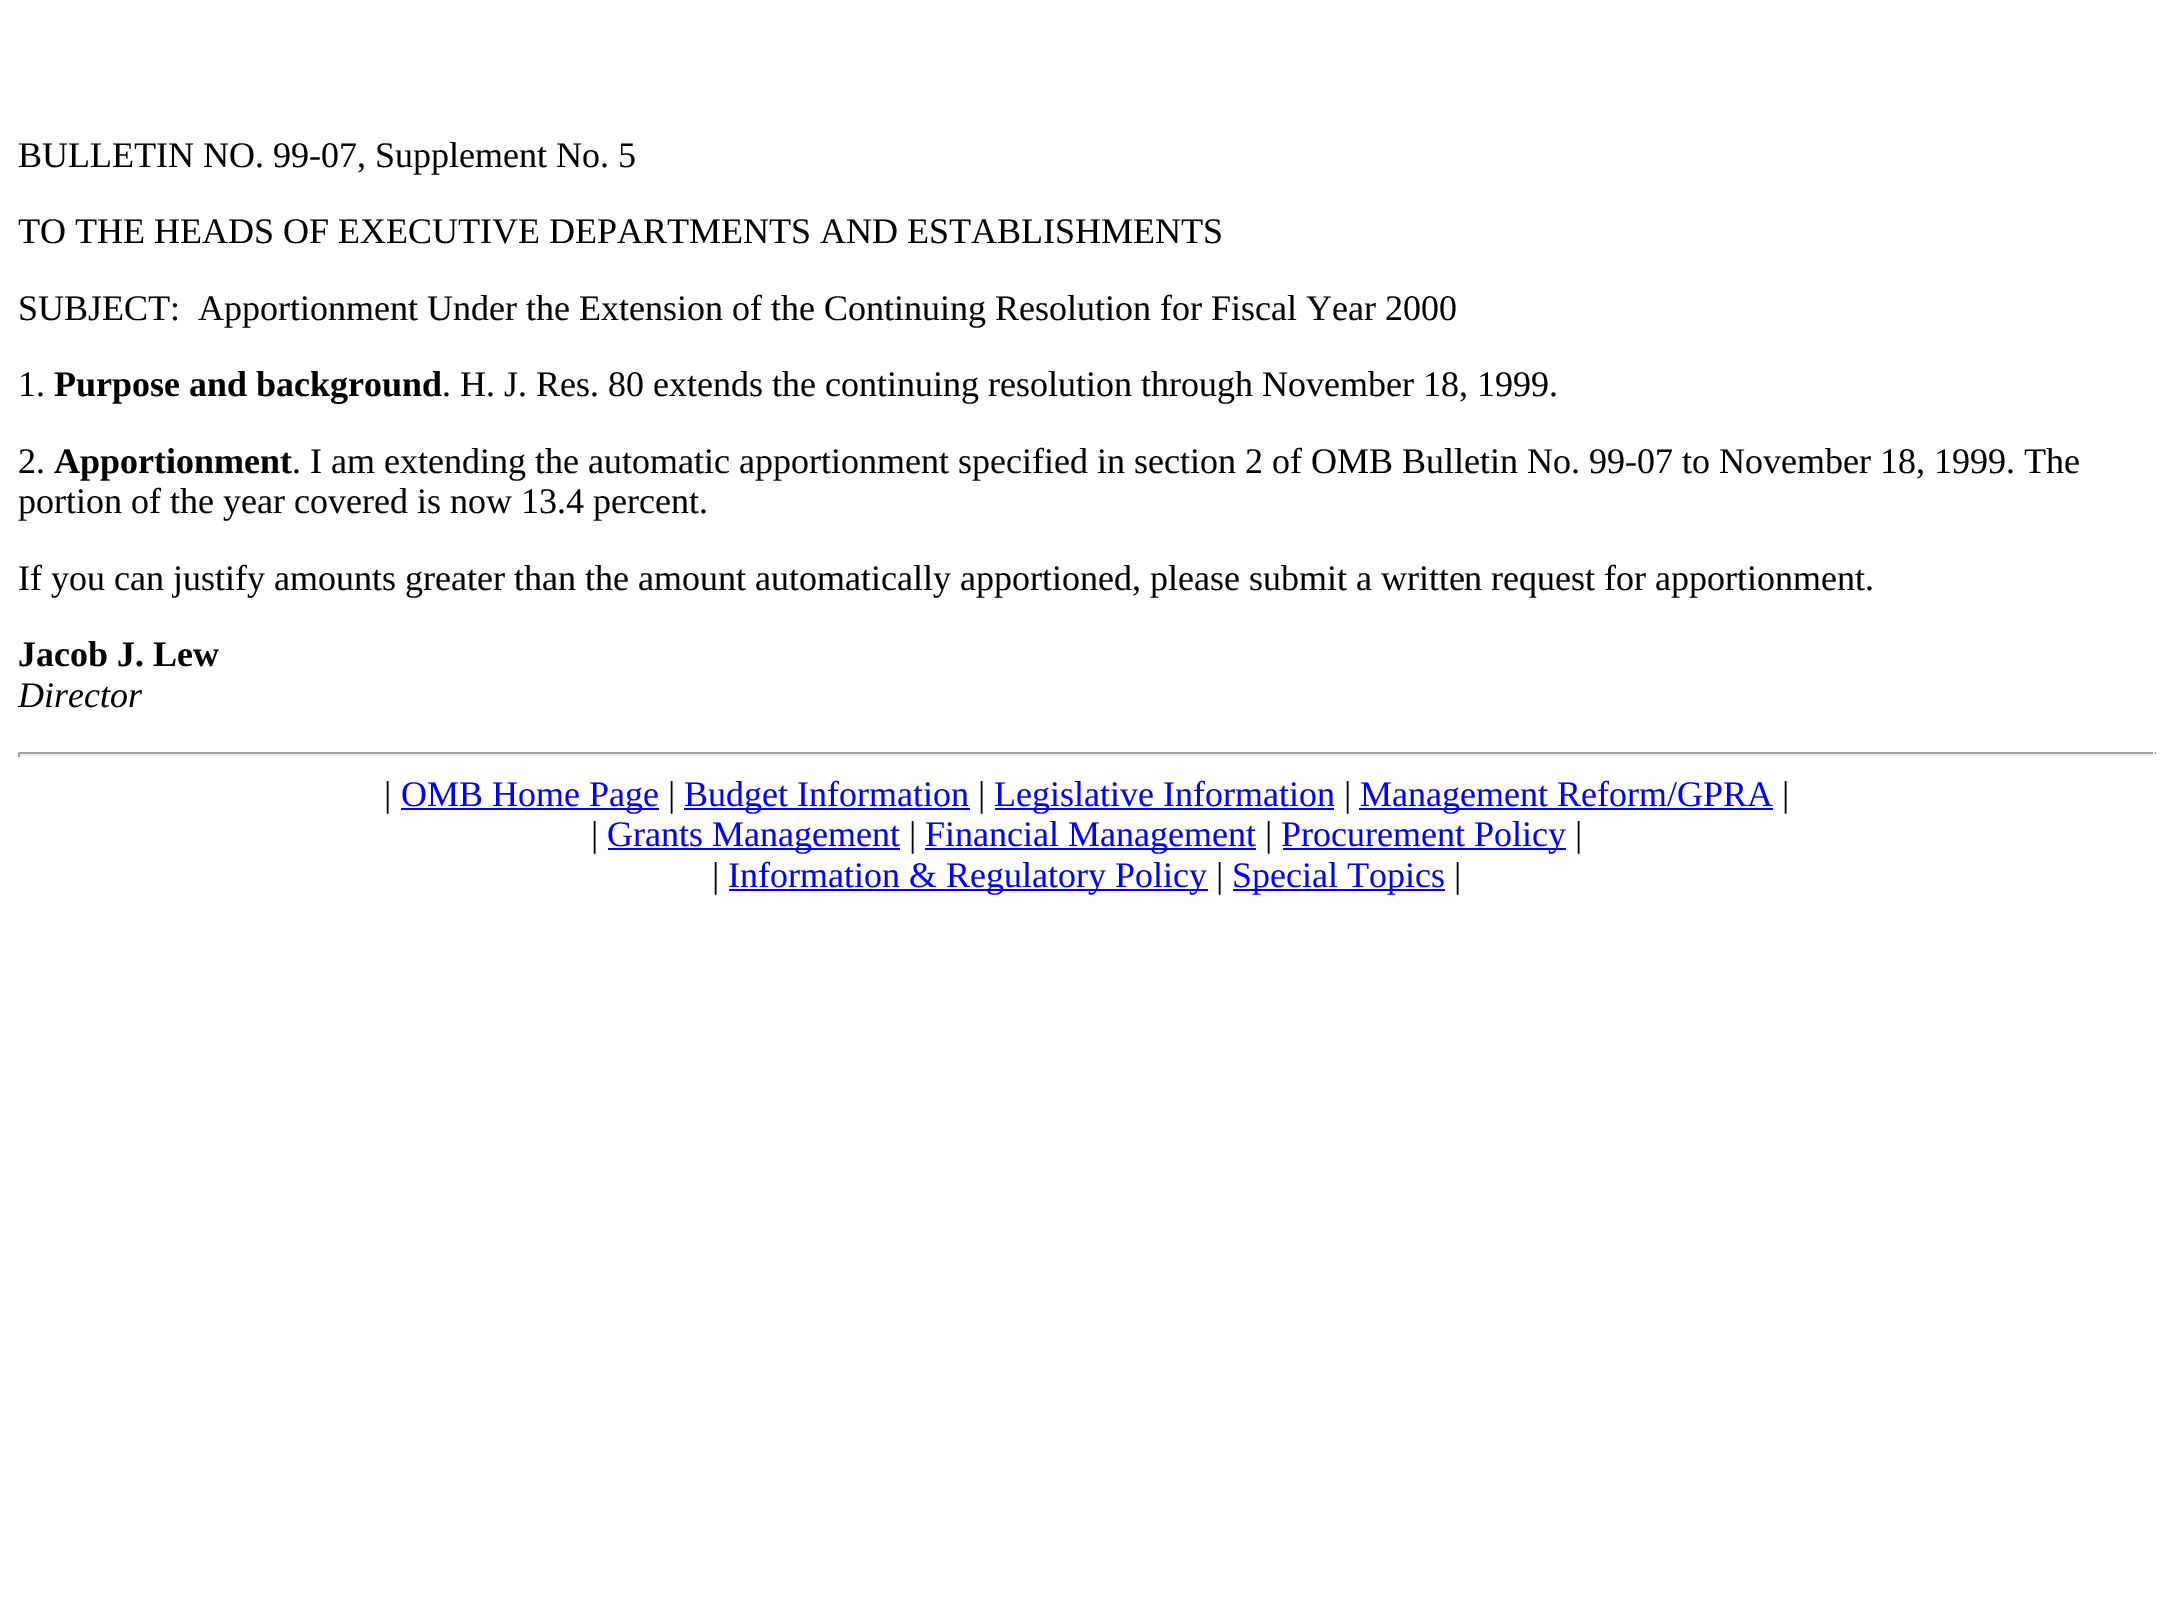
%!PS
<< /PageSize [2172 1618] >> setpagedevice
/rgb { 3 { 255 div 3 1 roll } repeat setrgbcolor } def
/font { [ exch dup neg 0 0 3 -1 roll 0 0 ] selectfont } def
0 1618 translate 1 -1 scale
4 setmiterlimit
255 255 255 rgb
0 0 2172 1618 rectfill
[
  [18 752 2138 2 159 159 159]
  [2153 752 2 5 238 238 238]
  [18 754 2138 2 238 238 238]
  [18 752 2 5 159 159 159]
  [401 808 258 2 0 0 255]
  [684 808 286 2 0 0 255]
  [995 808 339 2 0 0 255]
  [1359 808 414 2 0 0 255]
  [608 848 292 2 0 0 255]
  [925 848 331 2 0 0 255]
  [1283 848 283 2 0 0 255]
  [729 889 479 2 0 0 255]
  [1233 889 212 2 0 0 255]
] { aload pop rgb rectfill } forall
/LiberationSerif-Regular 36 font
0 0 0 rgb
[
  [(BULLETIN NO. 99-07, Supplement No. 5) 18 167]
  [(TO THE HEADS OF EXECUTIVE DEPARTMENTS AND ESTABLISHMENTS) 18 243]
  [(SUBJECT:  Apportionment Under the Extension of the Continuing Resolution for Fiscal Year 2000) 18 320]
  [(1.) 18 396]
] { aload pop moveto show } forall
/LiberationSerif-Bold 36 font
54 396 moveto (Purpose and background) show
/LiberationSerif-Regular 36 font
442 396 moveto (. H. J. Res. 80 extends the continuing resolution through November 18, 1999.) show
18 473 moveto (2.) show
/LiberationSerif-Bold 36 font
54 473 moveto (Apportionment) show
/LiberationSerif-Regular 36 font
[
  [(. I am extending the automatic apportionment specified in section 2 of OMB Bulletin No. 99-07 to November 18, 1999. The) 292 473]
  [(portion of the year covered is now 13.4 percent.) 18 513]
  [(If you can justify amounts greater than the amount automatically apportioned, please submit a written request for apportionment.) 18 590]
] { aload pop moveto show } forall
/LiberationSerif-Bold 36 font
18 666 moveto (Jacob J. Lew) show
/LiberationSerif-Italic 36 font
18 707 moveto (Director) show
/LiberationSerif-Regular 36 font
384 806 moveto (|) show
0 0 255 rgb
401 806 moveto (OMB Home Page) show
0 0 0 rgb
668 806 moveto (|) show
0 0 255 rgb
684 806 moveto (Budget Information) show
0 0 0 rgb
978 806 moveto (|) show
0 0 255 rgb
994 806 moveto (Legislative Information) show
0 0 0 rgb
1344 806 moveto (|) show
0 0 255 rgb
1360 806 moveto (Management Reform/GPRA) show
0 0 0 rgb
1782 806 moveto (|) show
591 846 moveto (|) show
0 0 255 rgb
607 846 moveto (Grants Management) show
0 0 0 rgb
909 846 moveto (|) show
0 0 255 rgb
925 846 moveto (Financial Management) show
0 0 0 rgb
1265 846 moveto (|) show
0 0 255 rgb
1281 846 moveto (Procurement Policy) show
0 0 0 rgb
1575 846 moveto (|) show
712 887 moveto (|) show
0 0 255 rgb
728 887 moveto (Information & Regulatory Policy) show
0 0 0 rgb
1216 887 moveto (|) show
0 0 255 rgb
1232 887 moveto (Special Topics) show
0 0 0 rgb
1454 887 moveto (|) show
showpage
